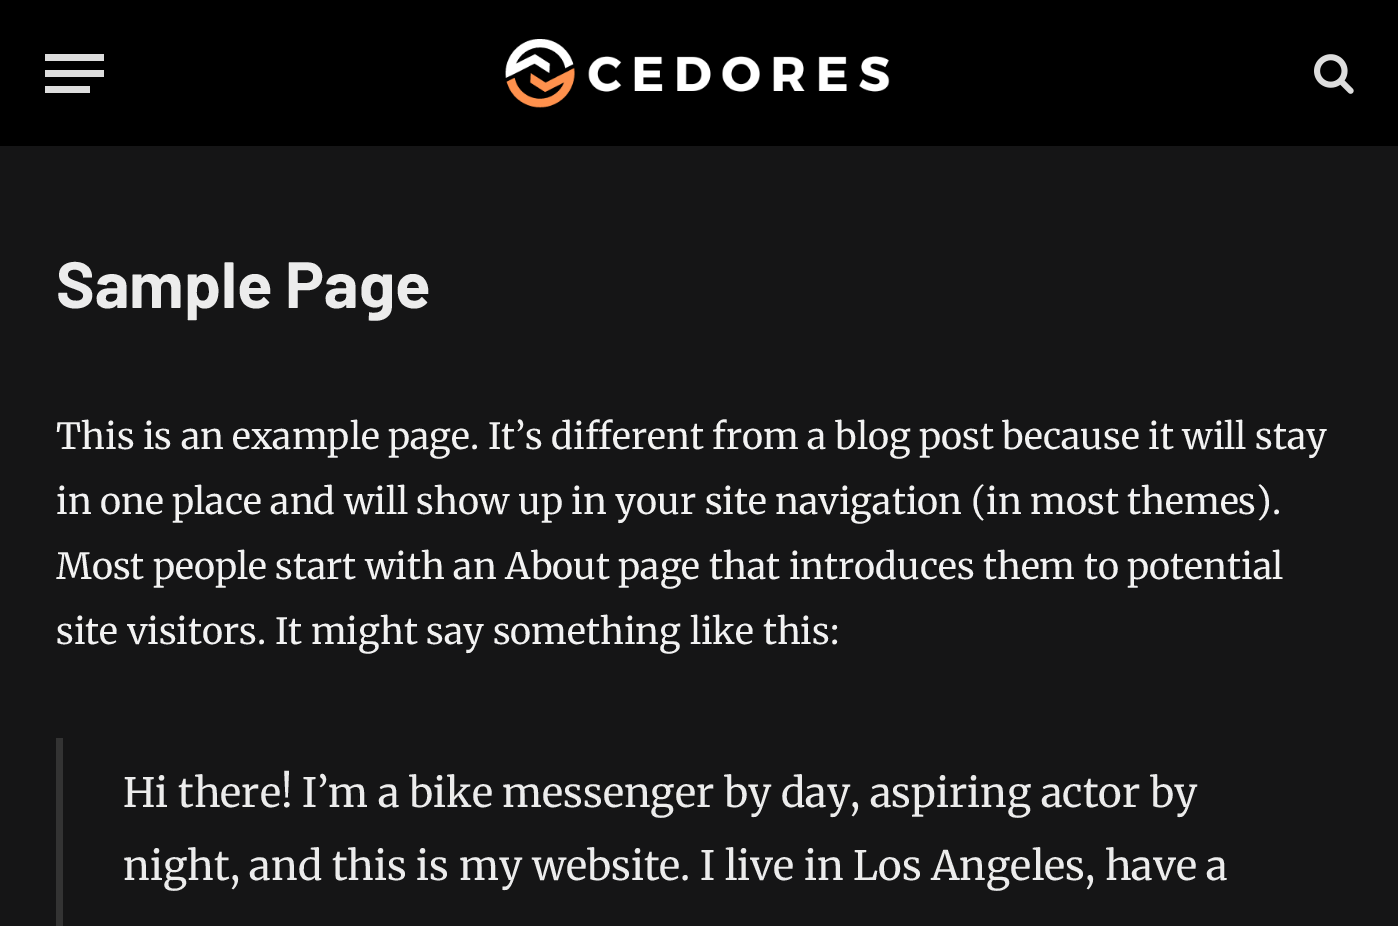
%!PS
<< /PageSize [1398 926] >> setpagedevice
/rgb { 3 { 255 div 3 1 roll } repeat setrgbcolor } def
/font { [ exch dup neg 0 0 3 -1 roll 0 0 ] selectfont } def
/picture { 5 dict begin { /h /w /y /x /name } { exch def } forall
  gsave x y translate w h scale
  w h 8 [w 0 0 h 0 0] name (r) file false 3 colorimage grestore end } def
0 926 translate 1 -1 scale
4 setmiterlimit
21 21 22 rgb
0 0 1398 926 rectfill
[
  [0 0 1398 146 0 0 0]
  [45 86 45 7 221 221 221]
  [45 54 59 7 221 221 221]
  [45 70 59 7 221 221 221]
] { aload pop rgb rectfill } forall
(img/1.rgb) 505 39 385 69 picture
(img/2.rgb) 1314 54 40 40 picture
51 51 51 rgb
56 738 7 188 rectfill
/Barlow-Bold 65.25 font
236 236 236 rgb
56 308 moveto (Sample Page) show
/Merriweather-Regular 36 font
242 242 242 rgb
[
  [(This is an example page. It’s different from a blog post because it will stay) 56 449]
  [(in one place and will show up in your site navigation \(in most themes\).) 56 514]
  [(Most people start with an About page that introduces them to potential) 56 579]
  [(site visitors. It might say something like this:) 56 644]
] { aload pop moveto show } forall
/Merriweather-Regular 40.3 font
236 236 236 rgb
123 807 moveto (Hi there! I’m a bike messenger by day, aspiring actor by) show
123 880 moveto (night, and this is my website. I live in Los Angeles, have a) show
showpage
